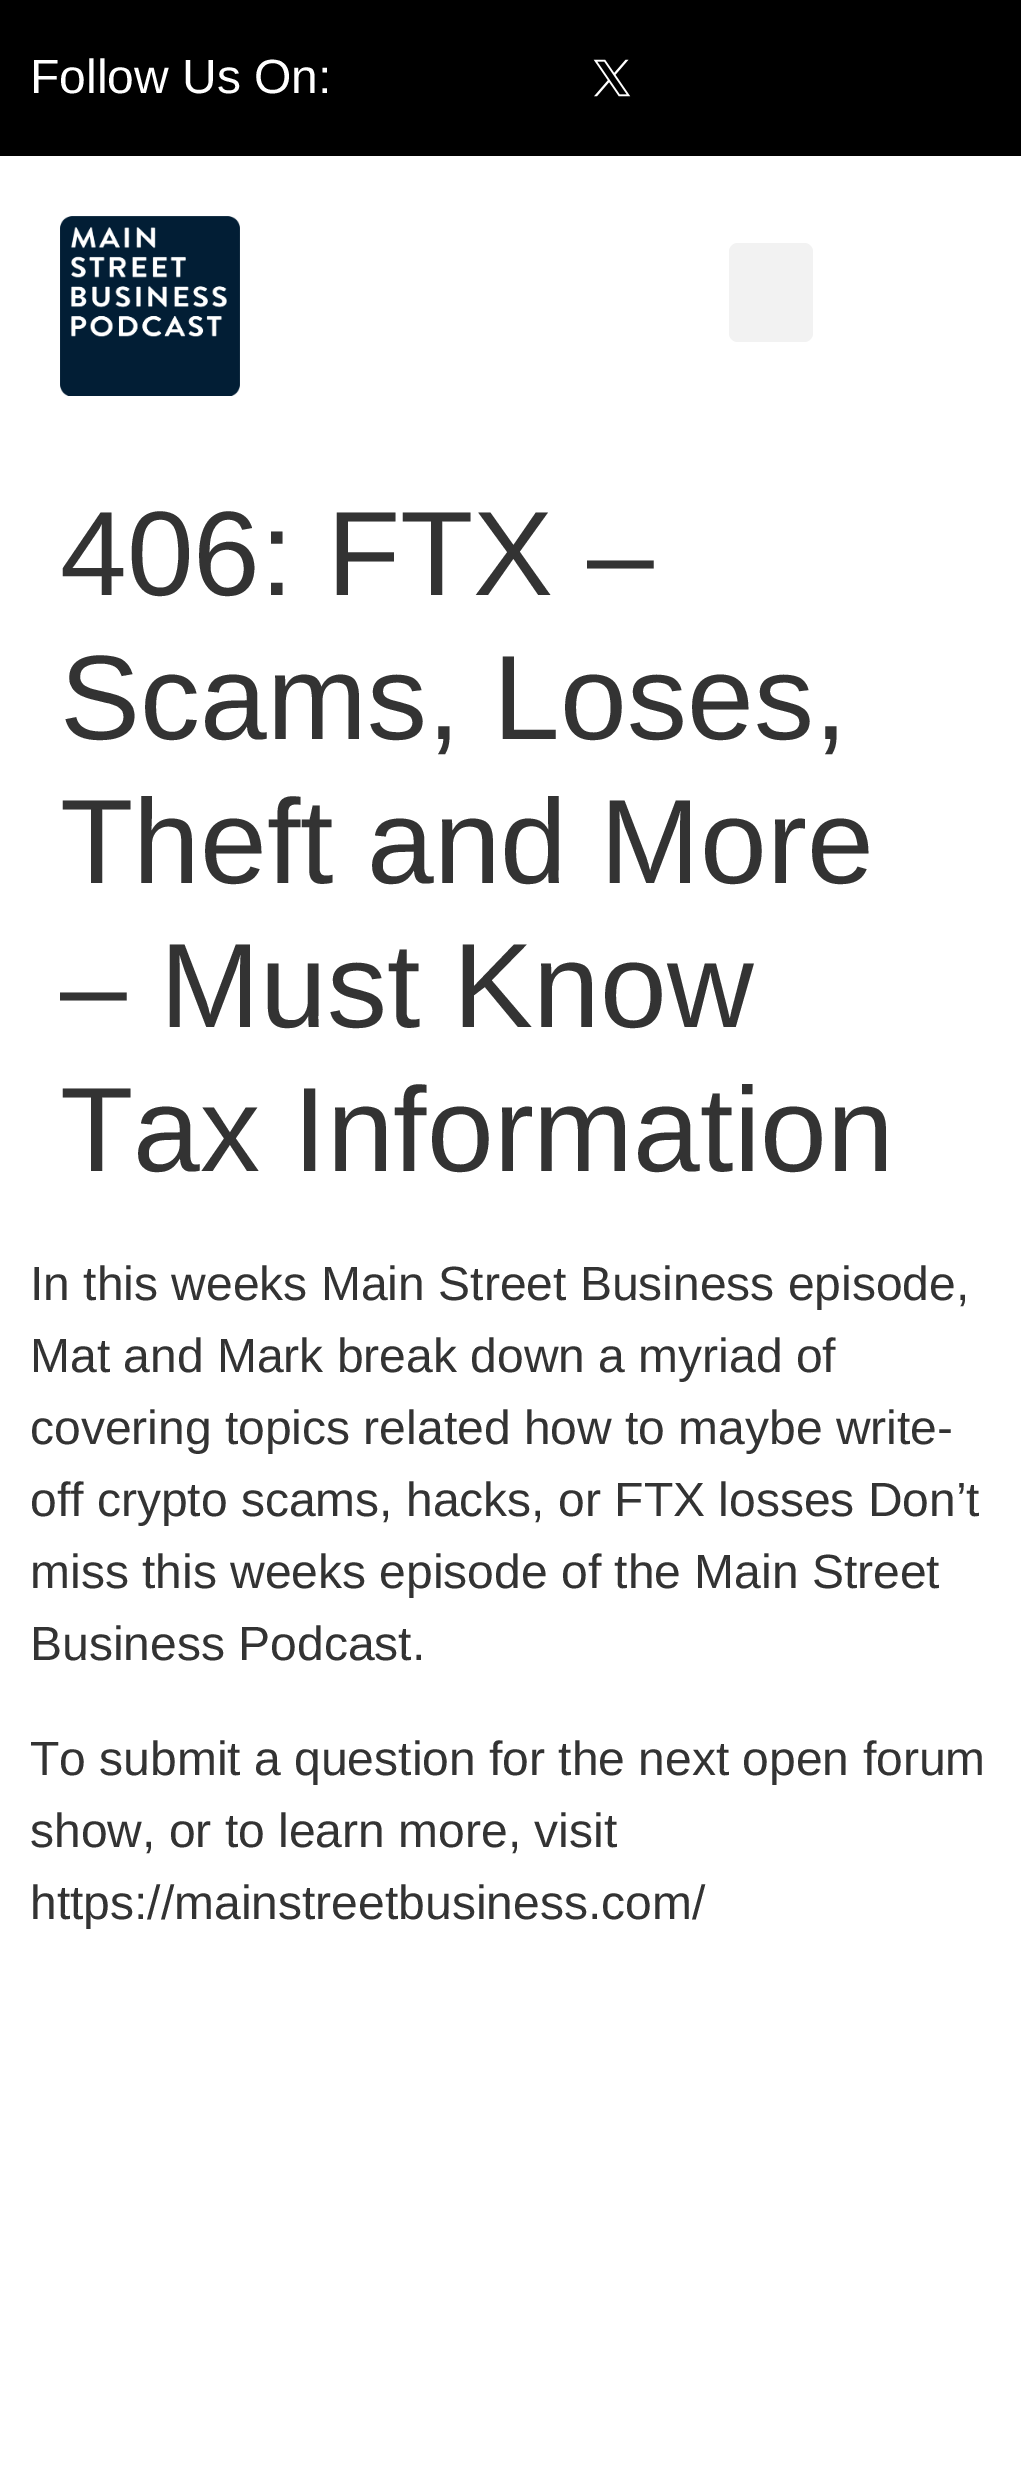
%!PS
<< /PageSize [1021 2485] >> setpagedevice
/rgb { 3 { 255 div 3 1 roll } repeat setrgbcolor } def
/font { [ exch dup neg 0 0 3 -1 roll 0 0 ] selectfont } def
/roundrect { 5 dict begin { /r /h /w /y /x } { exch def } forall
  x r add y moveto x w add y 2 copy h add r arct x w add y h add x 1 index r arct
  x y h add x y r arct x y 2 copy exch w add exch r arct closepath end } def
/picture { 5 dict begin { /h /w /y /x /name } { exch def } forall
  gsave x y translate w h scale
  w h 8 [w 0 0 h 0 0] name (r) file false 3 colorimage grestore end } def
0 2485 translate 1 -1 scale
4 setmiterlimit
255 255 255 rgb
0 0 1021 2485 rectfill
0 0 0 rgb
0 0 1021 156 rectfill
(img/1.rgb) 593 59 38 38 picture
(img/2.rgb) 60 216 180 180 picture
242 242 242 rgb
729 243 84 99 9 roundrect fill
/LiberationSans-Regular 48 font
255 255 255 rgb
30 93 moveto (Follow Us On:) show
/LiberationSans-Regular 120 font
51 51 51 rgb
[
  [(406: FTX –) 60 595]
  [(Scams, Loses,) 60 739]
  [(Theft and More) 60 883]
  [(– Must Know) 60 1027]
  [(Tax Information) 60 1171]
] { aload pop moveto show } forall
/LiberationSans-Regular 48 font
[
  [(In this weeks Main Street Business episode,) 30 1300]
  [(Mat and Mark break down a myriad of) 30 1372]
  [(covering topics related how to maybe write-) 30 1444]
  [(off crypto scams, hacks, or FTX losses Don’t) 30 1516]
  [(miss this weeks episode of the Main Street) 30 1588]
  [(Business Podcast.) 30 1660]
  [(To submit a question for the next open forum) 30 1775]
  [(show, or to learn more, visit) 30 1847]
  [(https://mainstreetbusiness.com/) 30 1919]
] { aload pop moveto show } forall
showpage
